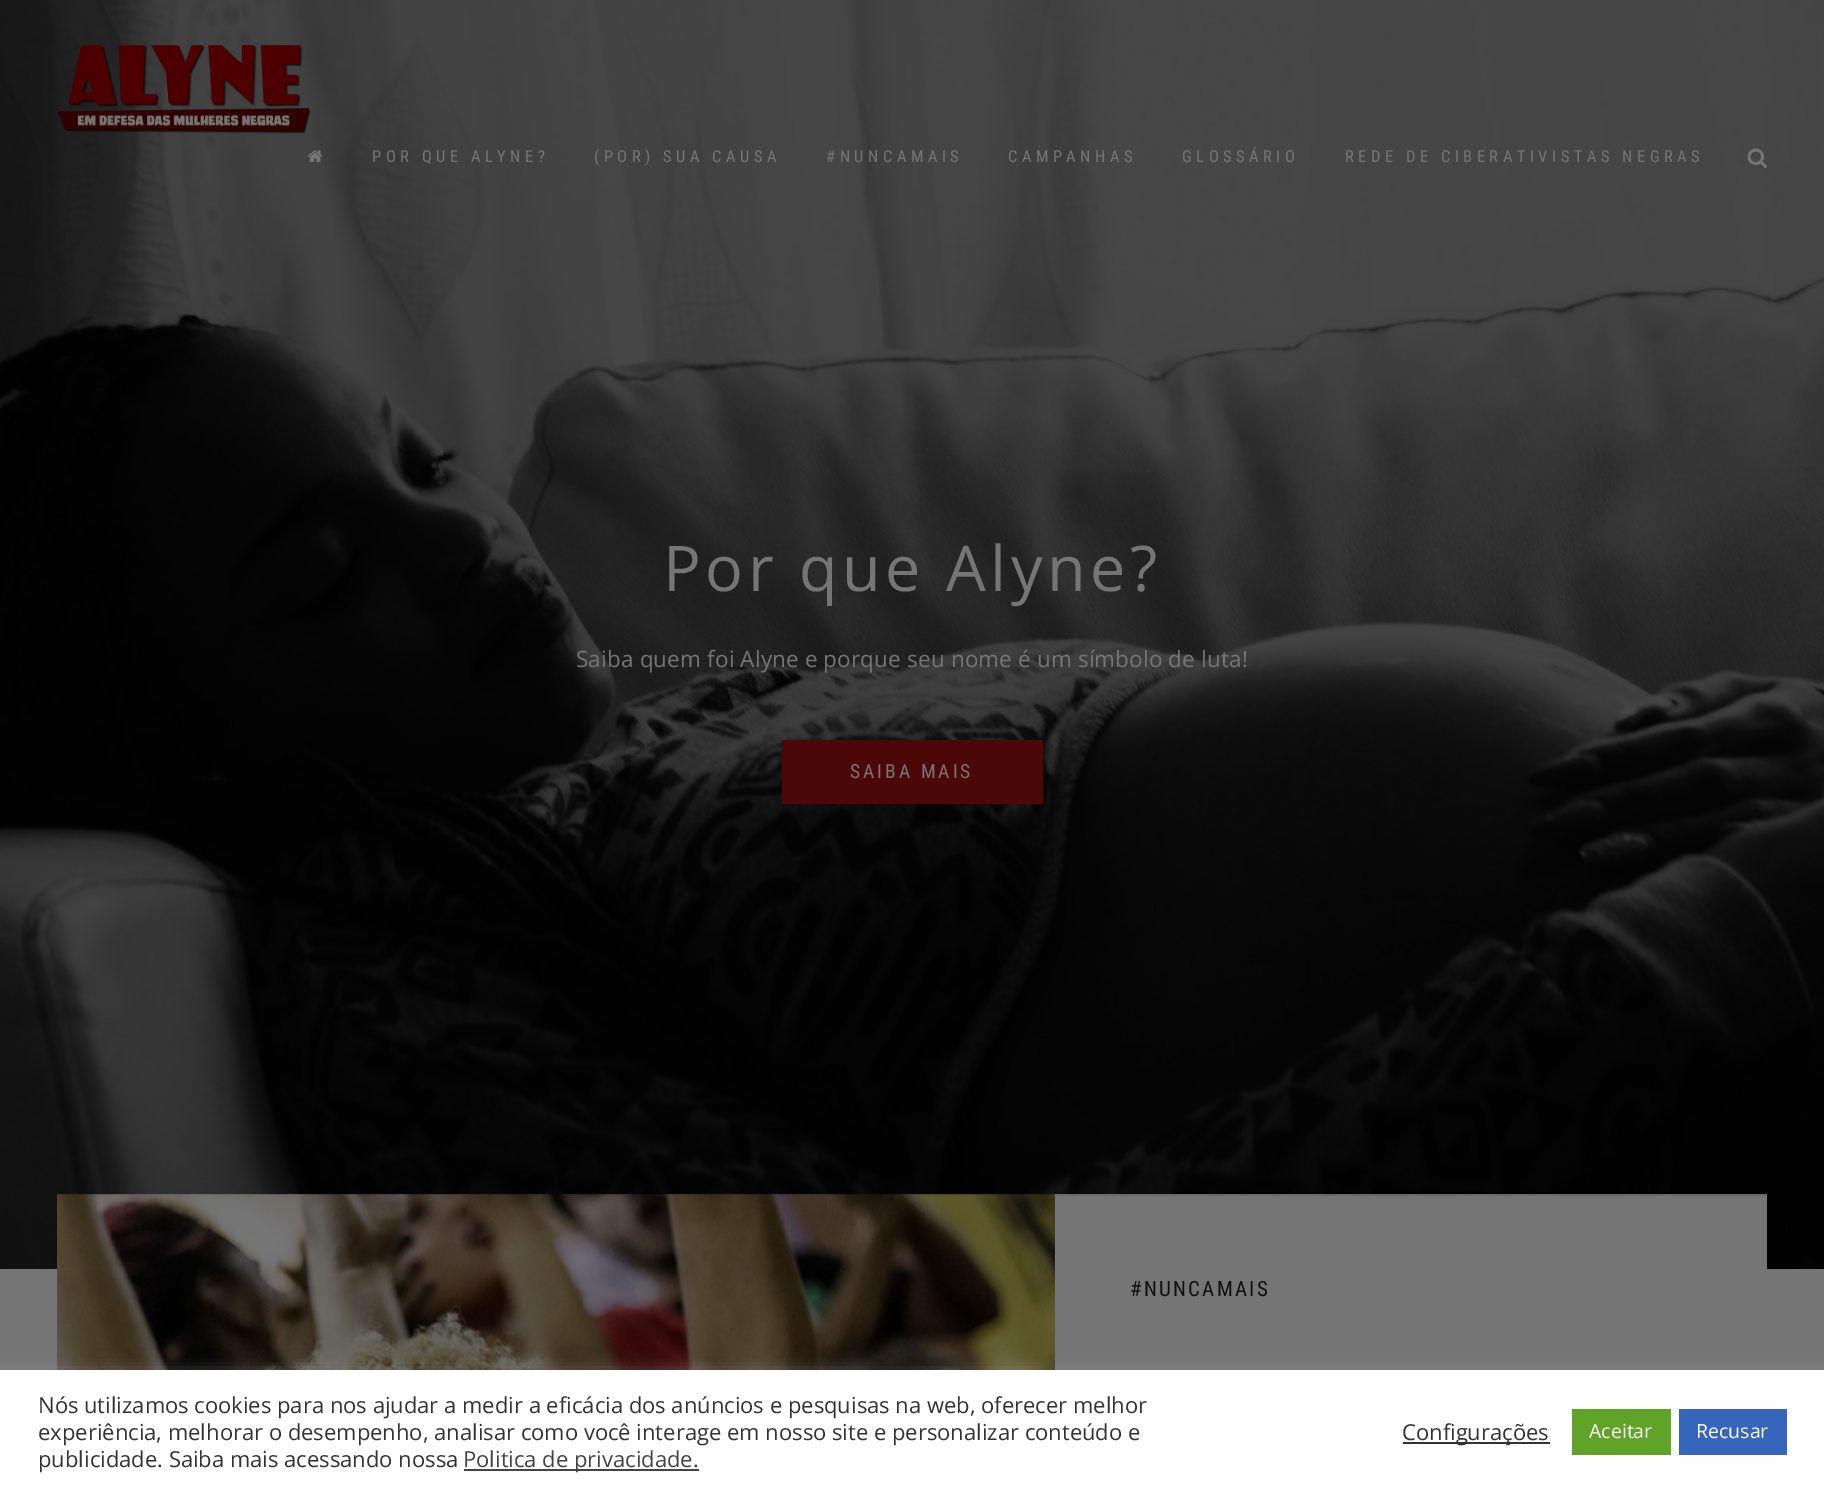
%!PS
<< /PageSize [1824 1492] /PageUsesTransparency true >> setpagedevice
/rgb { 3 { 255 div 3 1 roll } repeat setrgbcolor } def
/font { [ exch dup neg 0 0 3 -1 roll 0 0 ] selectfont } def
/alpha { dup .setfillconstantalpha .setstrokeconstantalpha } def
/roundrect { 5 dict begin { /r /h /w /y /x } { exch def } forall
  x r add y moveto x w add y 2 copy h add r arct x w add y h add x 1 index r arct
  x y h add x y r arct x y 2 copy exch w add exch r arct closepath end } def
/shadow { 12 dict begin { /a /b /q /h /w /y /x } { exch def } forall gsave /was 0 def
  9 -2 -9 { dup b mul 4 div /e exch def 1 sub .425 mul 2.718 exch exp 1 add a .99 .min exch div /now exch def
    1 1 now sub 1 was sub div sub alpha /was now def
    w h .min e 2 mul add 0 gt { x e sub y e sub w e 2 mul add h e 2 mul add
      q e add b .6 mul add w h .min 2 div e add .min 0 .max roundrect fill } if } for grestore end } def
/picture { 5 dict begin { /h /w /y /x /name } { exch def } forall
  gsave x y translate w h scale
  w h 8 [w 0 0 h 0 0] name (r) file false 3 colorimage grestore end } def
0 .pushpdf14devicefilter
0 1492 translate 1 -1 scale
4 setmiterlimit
117 117 117 rgb
0 0 1824 1492 rectfill
(img/4.rgb) 0 0 1824 1269 picture
(img/1.rgb) 57 45 254 89 picture
(img/2.rgb) 307 150 16 12 picture
(img/3.rgb) 1747 148 20 20 picture
76 8 8 rgb
782 740 261 64 rectfill
(img/5.rgb) 57 1194 998 176 picture
117 117 117 rgb
1055 1196 712 73 rectfill
105 105 105 rgb
1055 1194 712 2 rectfill
172 171 171 rgb
0 1368 1824 123 0 7.5 0.3 shadow
[
  [0 1370 1824 122 255 255 255]
  [464 1469 235 2 68 68 68]
  [1403 1442 147 2 51 51 51]
  [1572 1409 99 46 97 162 41]
  [1679 1409 108 46 53 102 187]
] { aload pop rgb rectfill } forall
/RobotoCondensed-Regular 16.5 font
117 117 117 rgb
372 162 moveto 4.5 0 (POR QUE ALYNE?) ashow
594 162 moveto 4.5 0 (\(POR\) SUA CAUSA) ashow
826 162 moveto 4.5 0 (#NUNCAMAIS) ashow
1008 162 moveto 4.5 0 (CAMPANHAS) ashow
1182 162 moveto 4.5 0 (GLOSSÁRIO) ashow
1345 162 moveto 4.5 0 (REDE DE CIBERATIVISTAS NEGRAS) ashow
/OpenSans-Regular 63 font
663 591 moveto 4.5 0 (Por que Alyne?) ashow
/OpenSans-Regular 22.5 font
576 667 moveto 0.15 0 (Saiba quem foi Alyne e porque seu nome é um símbolo de luta!) ashow
/RobotoCondensed-Regular 19.5 font
850 778 moveto 3 0 (SAIBA MAIS) ashow
/RobotoCondensed-Regular 21 font
16 16 16 rgb
1130 1296 moveto 2.25 0 (#NUNCAMAIS) ashow
/OpenSans-Regular 22 font
51 51 51 rgb
[
  [(Nós utilizamos cookies para nos ajudar a medir a eficácia dos anúncios e pesquisas na web, oferecer melhor) 38 1413]
  [(experiência, melhorar o desempenho, analisar como você interage em nosso site e personalizar conteúdo e) 38 1440]
  [(publicidade. Saiba mais acessando nossa) 38 1467]
] { aload pop moveto show } forall
68 68 68 rgb
463 1467 moveto (Politica de privacidade.) show
51 51 51 rgb
1402 1440 moveto (Configurações) show
/OpenSans-Regular 19.5 font
255 255 255 rgb
1589 1438 moveto (Aceitar) show
1696 1438 moveto (Recusar) show
.poppdf14devicefilter showpage
